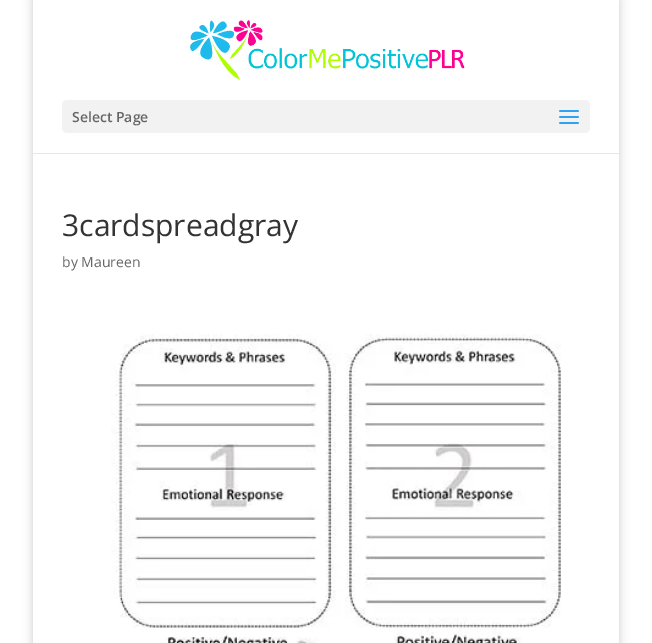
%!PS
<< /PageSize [652 643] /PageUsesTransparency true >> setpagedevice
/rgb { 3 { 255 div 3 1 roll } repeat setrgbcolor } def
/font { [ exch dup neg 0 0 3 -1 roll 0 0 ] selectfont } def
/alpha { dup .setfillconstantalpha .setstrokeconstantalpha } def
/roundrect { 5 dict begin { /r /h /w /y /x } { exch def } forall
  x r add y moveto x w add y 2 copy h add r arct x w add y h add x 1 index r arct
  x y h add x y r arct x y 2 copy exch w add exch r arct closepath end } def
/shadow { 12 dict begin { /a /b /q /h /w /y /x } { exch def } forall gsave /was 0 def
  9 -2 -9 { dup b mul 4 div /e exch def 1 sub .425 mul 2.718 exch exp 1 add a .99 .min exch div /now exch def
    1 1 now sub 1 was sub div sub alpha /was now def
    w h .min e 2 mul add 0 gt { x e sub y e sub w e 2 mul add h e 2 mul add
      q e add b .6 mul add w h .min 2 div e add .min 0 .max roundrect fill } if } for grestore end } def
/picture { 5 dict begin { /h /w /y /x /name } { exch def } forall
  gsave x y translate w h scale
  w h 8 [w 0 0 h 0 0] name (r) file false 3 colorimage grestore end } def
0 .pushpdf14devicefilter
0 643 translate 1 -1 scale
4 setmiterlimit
255 255 255 rgb
0 0 652 643 rectfill
gsave
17 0 moveto 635 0 lineto 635 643 lineto 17 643 lineto closepath 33 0 moveto 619 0 lineto 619 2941 lineto 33 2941 lineto closepath eoclip newpath
0 0 0 rgb
33 0 586 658 0 5 0.2 shadow
grestore
230 230 230 rgb
33 153 586 1 rectfill
(img/1.rgb) 190 20 275 60 picture
242 242 242 rgb
62 100 528 33 5 roundrect fill
(img/2.rgb) 559 110 20 14 picture
(img/3.rgb) 111 334 450 309 picture
/OpenSans-SemiBold 14 font
102 102 102 rgb
72 122 moveto (Select Page) show
/OpenSans-Regular 30 font
51 51 51 rgb
62 236 moveto (3cardspreadgray) show
/OpenSans-Regular 14 font
102 102 102 rgb
62 267 moveto (by Maureen) show
.poppdf14devicefilter showpage
